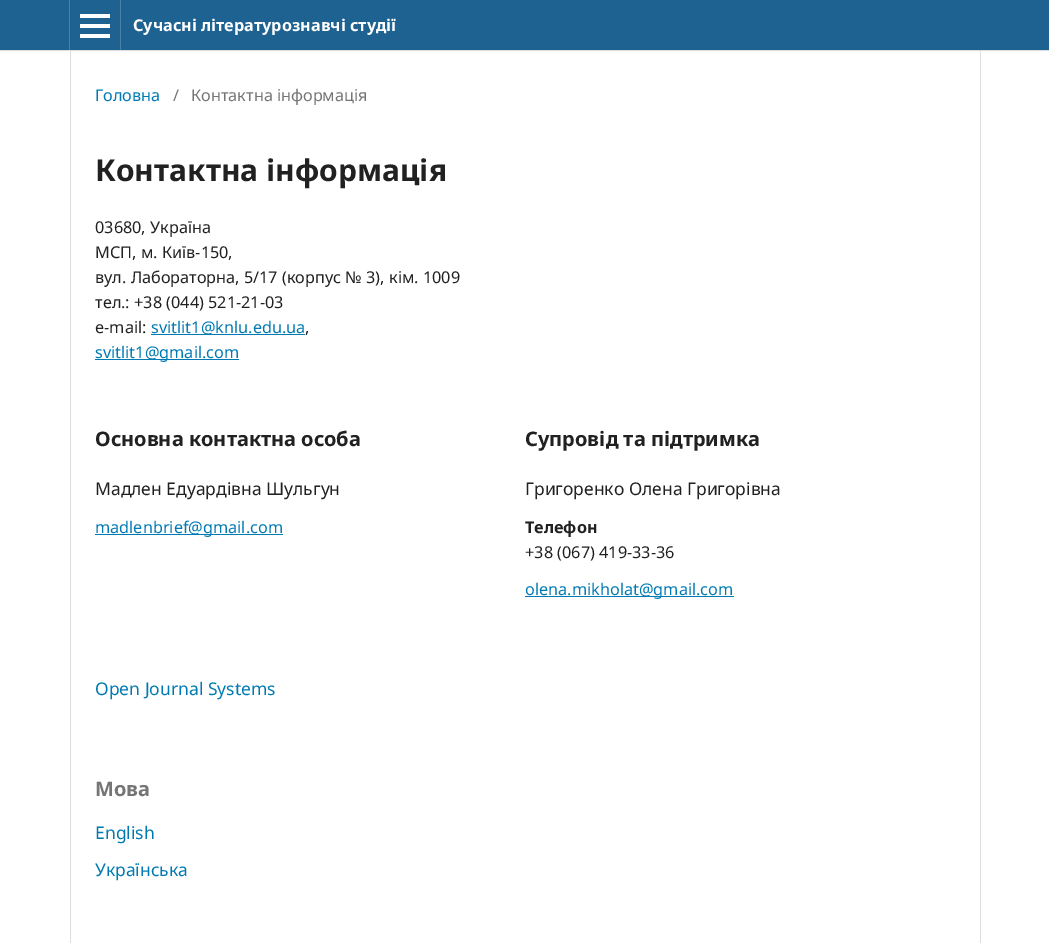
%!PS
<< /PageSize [1049 943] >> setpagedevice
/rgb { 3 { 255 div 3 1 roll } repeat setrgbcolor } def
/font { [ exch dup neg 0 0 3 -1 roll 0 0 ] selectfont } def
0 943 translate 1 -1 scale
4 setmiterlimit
255 255 255 rgb
0 0 1049 943 rectfill
[
  [0 0 1049 50 30 98 146]
  [0 50 1049 1 221 221 221]
  [69 0 1 50 75 129 168]
  [120 0 1 50 75 129 168]
  [80 34 30 4 255 255 255]
  [80 14 30 4 255 255 255]
  [80 24 30 4 255 255 255]
  [70 51 1 892 221 221 221]
  [151 334 154 1 0 122 178]
  [95 359 144 1 0 122 178]
  [95 534 188 1 0 122 178]
  [525 596 209 1 0 122 178]
  [980 51 1 892 221 221 221]
] { aload pop rgb rectfill } forall
/NotoSans-Bold 16.25 font
255 255 255 rgb
133 31 moveto (Сучасні літературознавчі студії) show
/NotoSans-Regular 16.25 font
0 122 178 rgb
95 101 moveto (Головна) show
117 117 117 rgb
173 101 moveto (/) show
191 101 moveto (Контактна інформація) show
/NotoSans-Bold 30 font
33 33 33 rgb
95 181 moveto (Контактна інформація) show
/NotoSans-Regular 16.25 font
[
  [(03680, Україна) 95 233]
  [(МСП, м. Київ-150,) 95 258]
  [(вул. Лабораторна, 5/17 \(корпус № 3\), кім. 1009) 95 283]
  [(тел.: +38 \(044\) 521-21-03) 95 308]
  [(e-mail:) 95 333]
] { aload pop moveto show } forall
0 122 178 rgb
151 333 moveto (svitlit1@knlu.edu.ua) show
33 33 33 rgb
305 333 moveto (,) show
0 122 178 rgb
95 358 moveto (svitlit1@gmail.com) show
/NotoSans-Bold 20 font
33 33 33 rgb
95 446 moveto (Основна контактна особа) show
/NotoSans-Regular 17.5 font
95 495 moveto (Мадлен Едуардівна Шульгун) show
/NotoSans-Regular 16.25 font
0 122 178 rgb
95 533 moveto (madlenbrief@gmail.com) show
/NotoSans-Bold 20 font
33 33 33 rgb
525 446 moveto (Супровід та підтримка) show
/NotoSans-Regular 17.5 font
525 495 moveto (Григоренко Олена Григорівна) show
/NotoSans-Bold 16.25 font
525 533 moveto (Телефон) show
/NotoSans-Regular 16.25 font
525 558 moveto (+38 \(067\) 419-33-36) show
0 122 178 rgb
525 595 moveto (olena.mikholat@gmail.com) show
/NotoSans-Regular 17.5 font
95 695 moveto (Open Journal Systems) show
/NotoSans-Bold 20 font
117 117 117 rgb
95 796 moveto (Мова) show
/NotoSans-Regular 17.5 font
0 122 178 rgb
95 839 moveto (English) show
95 876 moveto (Українська) show
showpage
